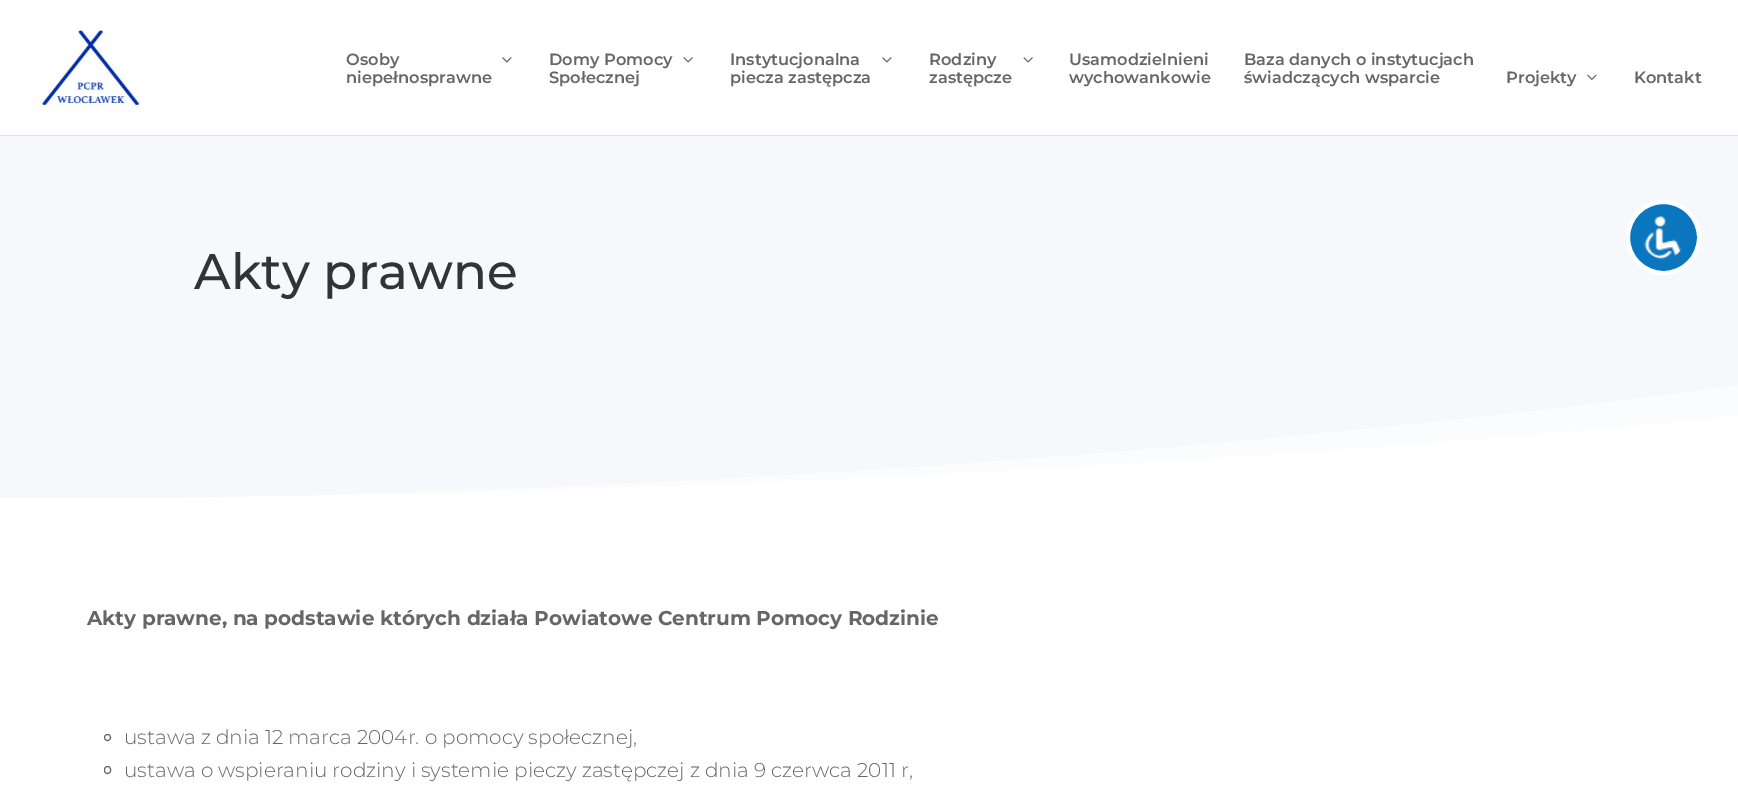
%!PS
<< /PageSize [1738 792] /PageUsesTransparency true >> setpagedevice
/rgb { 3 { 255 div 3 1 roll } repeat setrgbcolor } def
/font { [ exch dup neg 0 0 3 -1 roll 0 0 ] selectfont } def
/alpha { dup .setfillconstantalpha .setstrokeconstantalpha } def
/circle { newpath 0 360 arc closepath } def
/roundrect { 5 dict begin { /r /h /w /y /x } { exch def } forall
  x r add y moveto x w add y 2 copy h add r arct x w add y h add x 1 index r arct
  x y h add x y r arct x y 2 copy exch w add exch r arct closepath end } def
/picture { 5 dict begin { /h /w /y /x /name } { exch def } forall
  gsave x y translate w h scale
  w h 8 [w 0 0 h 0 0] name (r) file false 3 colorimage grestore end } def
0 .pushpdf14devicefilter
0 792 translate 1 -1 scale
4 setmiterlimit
255 255 255 rgb
0 0 1738 792 rectfill
222 223 227 rgb
0 135 moveto 0 136 lineto 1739 136 lineto 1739 1 lineto 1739 135 lineto closepath fill
(img/1.rgb) 42 30 98 75 picture
(img/2.rgb) 502 57 10 6 picture
(img/3.rgb) 683 57 10 6 picture
(img/2.rgb) 882 57 10 6 picture
(img/3.rgb) 1023 57 10 6 picture
(img/4.rgb) 1587 74 10 6 picture
247 248 252 rgb
0 136 1738 362 rectfill
0.5 alpha
255 255 255 rgb
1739 499 moveto 0 499 lineto 960 499 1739 385 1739 385 curveto closepath fill
1 alpha
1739 499 moveto 0 499 lineto 960 499 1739 416 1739 416 curveto closepath fill
102 102 102 rgb
107.5 737.5 3 circle stroke
104.5 766.5 6 7 3 roundrect stroke
10 118 190 rgb
1663.5 237.5 35.5 circle gsave fill grestore
255 255 255 rgb
4 setlinewidth
stroke
(img/5.rgb) 1644 216 37 44 picture
/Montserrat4-Thin 16.25 font
102 102 102 rgb
[
  [(Osoby) 346 65]
  [(niepełnosprawne) 346 83]
  [(Domy Pomocy) 549 65]
  [(Społecznej) 549 83]
  [(Instytucjonalna) 730 65]
  [(piecza zastępcza) 730 83]
  [(Rodziny) 929 65]
  [(zastępcze) 929 83]
  [(Usamodzielnieni) 1069 65]
  [(wychowankowie) 1069 83]
  [(Baza danych o instytucjach) 1244 65]
  [(świadczących wsparcie) 1244 83]
  [(Projekty) 1506 83]
  [(Kontakt) 1634 83]
] { aload pop moveto show } forall
/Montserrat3-Thin 50 font
51 51 51 rgb
194 289 moveto (Akty prawne) show
/Montserrat-Thin 20 font
102 102 102 rgb
87 625 moveto (Akty prawne, na podstawie których działa Powiatowe Centrum Pomocy Rodzinie) show
/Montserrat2-Thin 20 font
124 744 moveto (ustawa z dnia 12 marca 2004r. o pomocy społecznej,) show
124 777 moveto (ustawa o wspieraniu rodziny i systemie pieczy zastępczej z dnia 9 czerwca 2011 r,) show
.poppdf14devicefilter showpage
